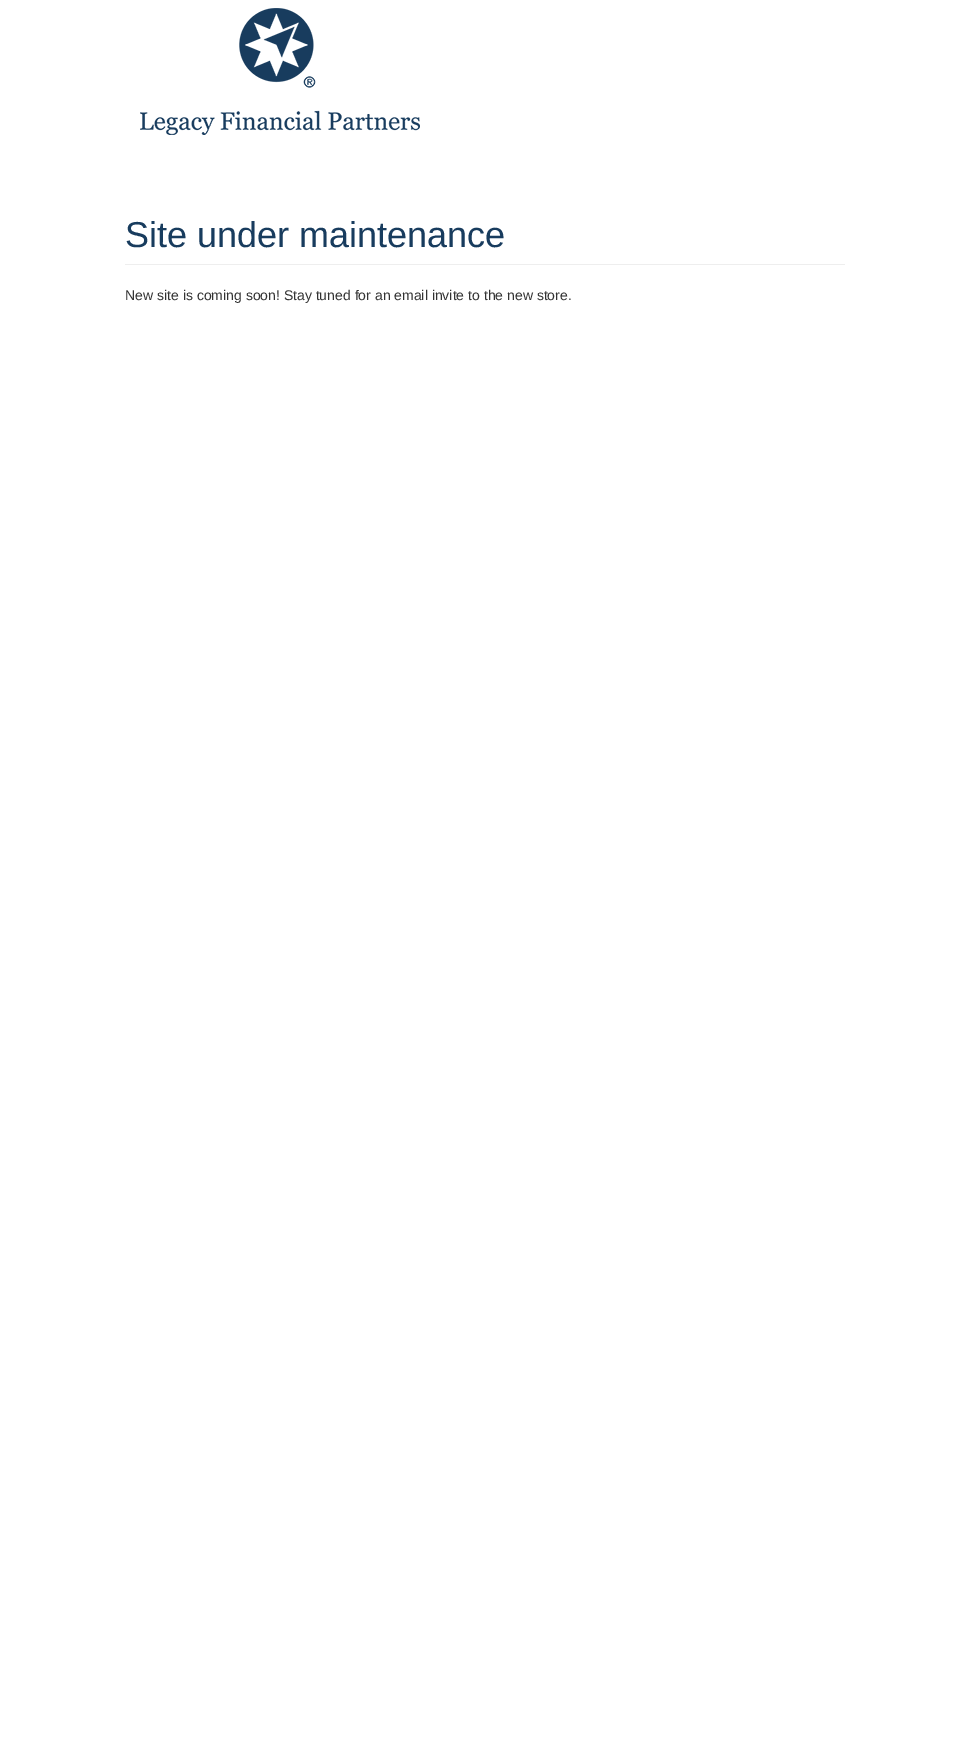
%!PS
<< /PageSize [970 1746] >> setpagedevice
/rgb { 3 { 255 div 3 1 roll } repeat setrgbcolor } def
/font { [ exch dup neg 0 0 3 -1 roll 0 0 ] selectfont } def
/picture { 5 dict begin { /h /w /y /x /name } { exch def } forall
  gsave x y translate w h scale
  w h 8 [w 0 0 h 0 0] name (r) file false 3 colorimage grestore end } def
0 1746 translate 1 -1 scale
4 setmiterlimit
255 255 255 rgb
0 0 970 1746 rectfill
(img/1.rgb) 140 8 280 127 picture
238 238 238 rgb
125 264 720 1 rectfill
/LiberationSans-Regular 36 font
24 60 94 rgb
125 247 moveto (Site under maintenance) show
/LiberationSans-Regular 14 font
51 51 51 rgb
125 300 moveto (New site is coming soon! Stay tuned for an email invite to the new store.) show
showpage
